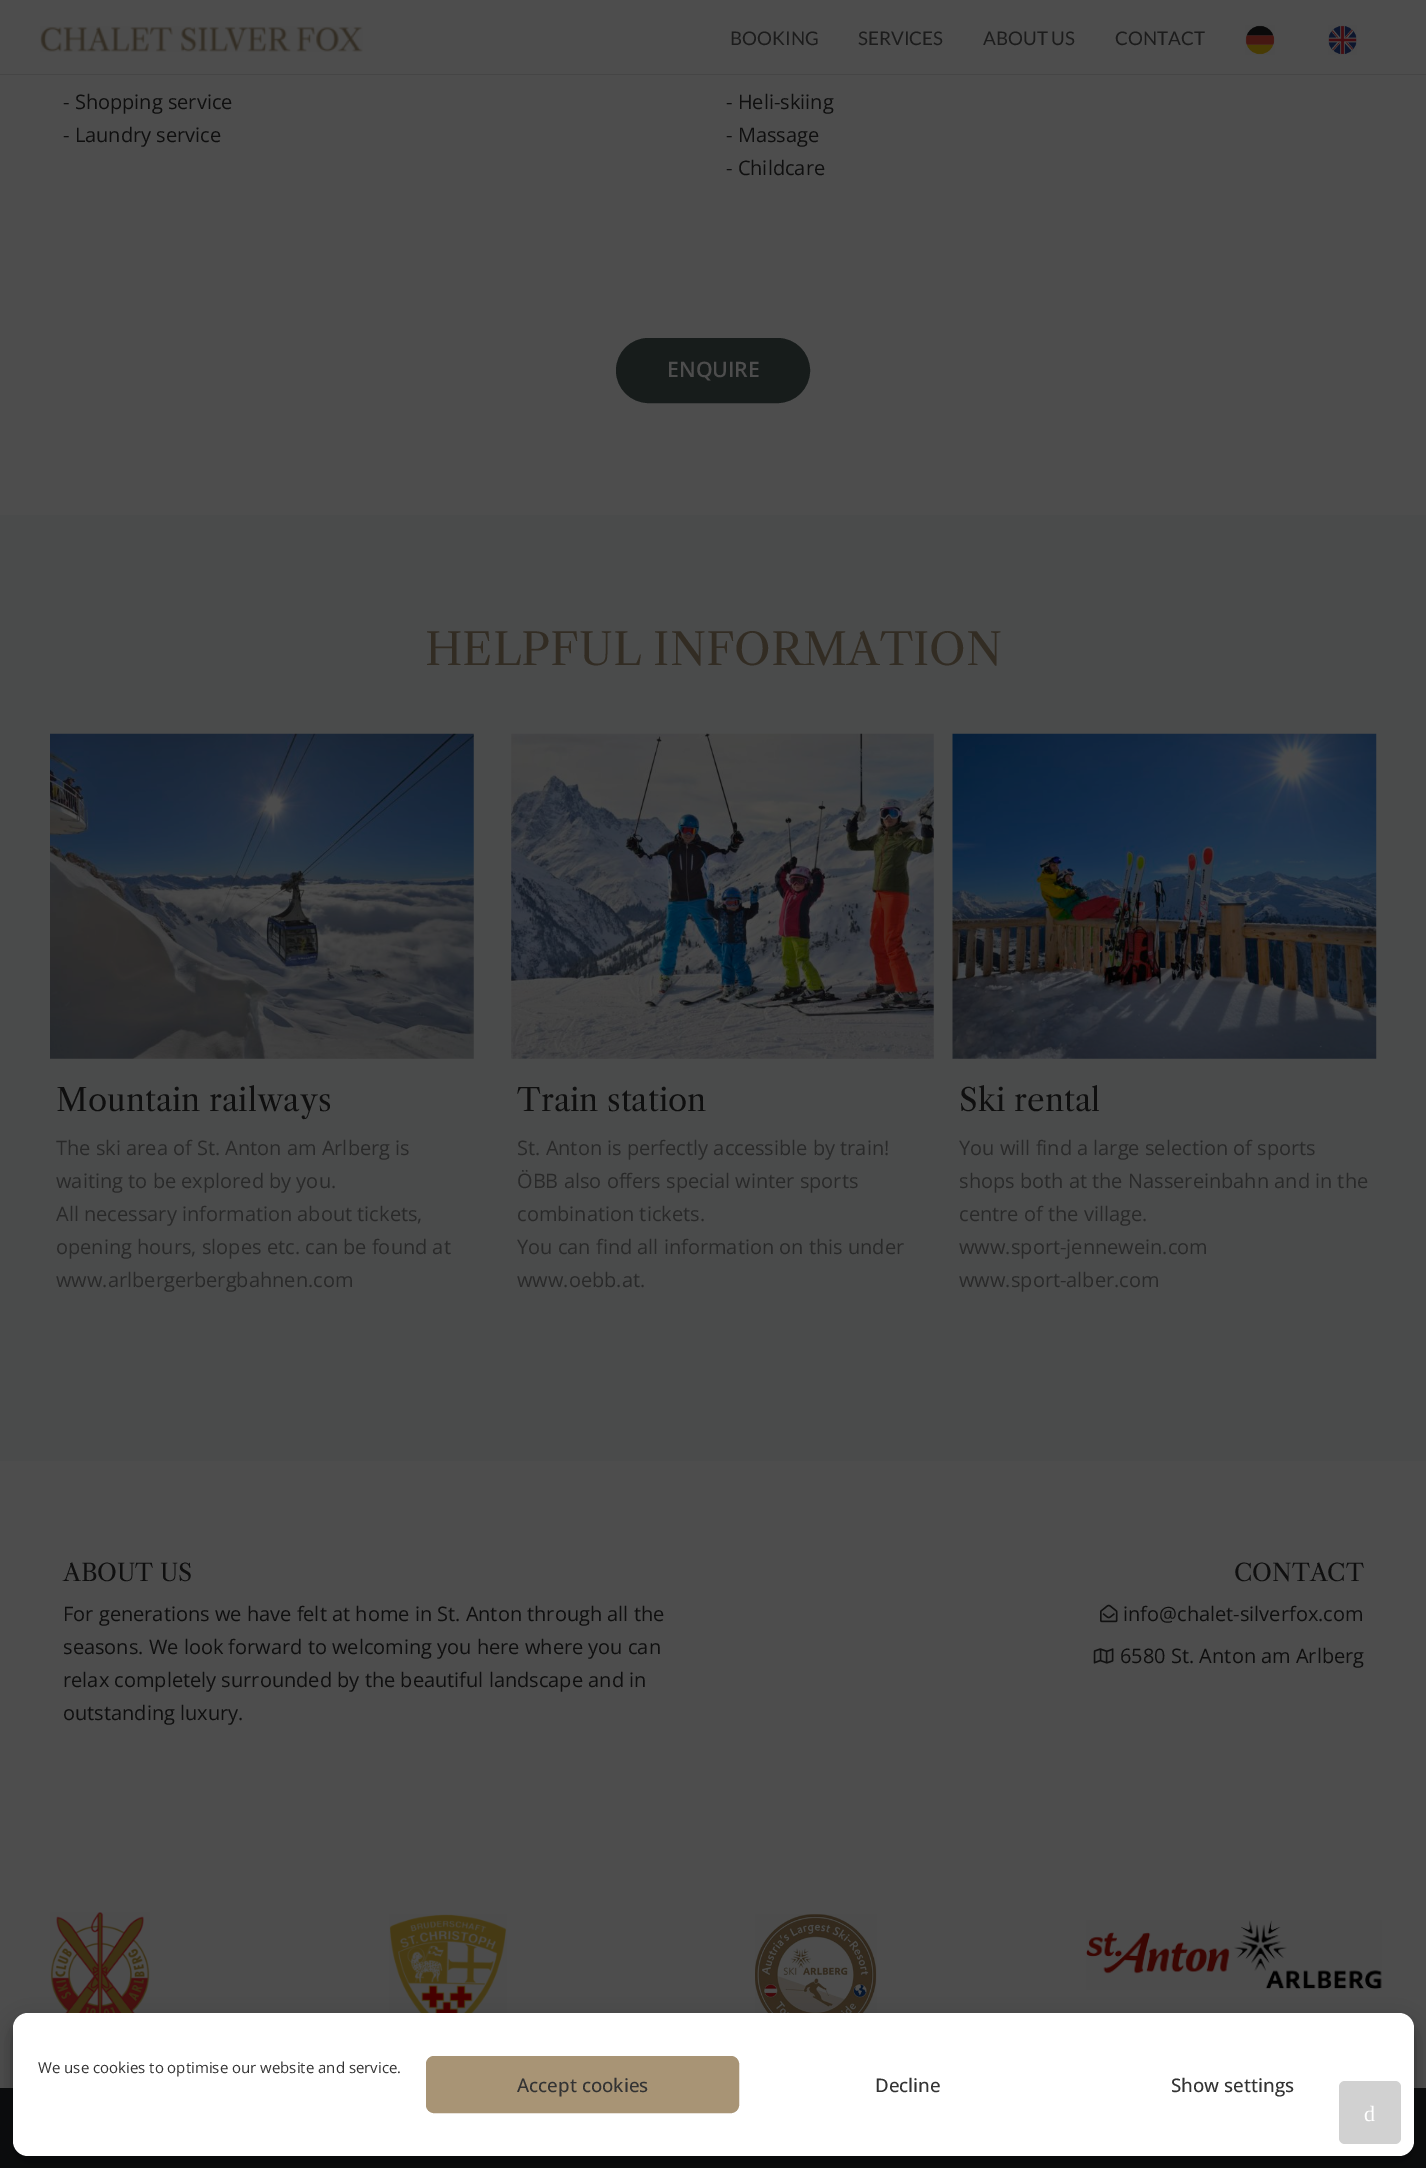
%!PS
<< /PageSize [1426 2168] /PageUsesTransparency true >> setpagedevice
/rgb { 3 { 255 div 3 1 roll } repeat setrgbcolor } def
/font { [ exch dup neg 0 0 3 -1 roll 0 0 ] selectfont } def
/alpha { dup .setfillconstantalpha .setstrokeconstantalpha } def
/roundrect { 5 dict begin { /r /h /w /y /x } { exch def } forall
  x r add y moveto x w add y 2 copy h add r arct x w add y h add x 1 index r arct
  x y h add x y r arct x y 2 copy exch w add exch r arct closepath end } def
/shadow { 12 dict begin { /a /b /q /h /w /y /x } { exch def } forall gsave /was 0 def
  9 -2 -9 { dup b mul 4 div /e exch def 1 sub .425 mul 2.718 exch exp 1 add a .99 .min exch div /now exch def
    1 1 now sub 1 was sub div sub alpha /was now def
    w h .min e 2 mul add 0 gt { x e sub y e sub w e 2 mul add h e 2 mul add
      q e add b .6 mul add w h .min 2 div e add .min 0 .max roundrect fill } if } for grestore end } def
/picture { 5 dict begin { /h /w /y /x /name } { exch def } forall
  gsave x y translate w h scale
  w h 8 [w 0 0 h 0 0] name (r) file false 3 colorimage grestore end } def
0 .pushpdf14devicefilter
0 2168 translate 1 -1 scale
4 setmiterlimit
77 77 77 rgb
0 0 1426 2168 rectfill
69 69 69 rgb
0 74 1426 1 rectfill
(img/1.rgb) 40 26 323 26 picture
(img/2.rgb) 1245 25 30 30 picture
(img/3.rgb) 1328 25 29 30 picture
23 28 27 rgb
617.5 339.5 191 62 31 roundrect gsave fill grestore
3 setlinewidth
stroke
74 75 75 rgb
0 515 1426 946 rectfill
(img/4.rgb) 50 733 424 326 picture
(img/5.rgb) 511 733 423 326 picture
(img/6.rgb) 952 733 425 326 picture
(img/7.rgb) 1100 1604 18 19 picture
(img/8.rgb) 1093 1648 21 16 picture
(img/9.rgb) 50 1912 100 101 picture
(img/10.rgb) 389 1914 118 99 picture
(img/11.rgb) 755 1914 122 99 picture
(img/12.rgb) 1086 1920 296 70 picture
11 12 13 rgb
0 2088 1426 80 rectfill
0 0 0 rgb
13 2020 1401 144 15 4 0.23 shadow
13 2025 1401 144 15 12.5 0.19 shadow
255 255 255 rgb
13 2013 1401 143 15 roundrect fill
168 148 117 rgb
426.5 2056.5 312 56 7.5 roundrect gsave fill grestore
1 setlinewidth
stroke
209 209 209 rgb
1339 2081 62 63 6 roundrect fill
/Lato-Regular 18.75 font
28 28 28 rgb
[
  [(BOOKING) 730 45]
  [(SERVICES) 858 45]
  [(ABOUT US) 983 45]
  [(CONTACT) 1115 45]
] { aload pop moveto show } forall
/OpenSans-Regular 20 font
15 15 15 rgb
[
  [(- Shopping service) 63 109]
  [(- Laundry service) 63 142]
  [(- Heli-skiing) 726 109]
  [(- Massage) 726 142]
  [(- Childcare) 726 175]
] { aload pop moveto show } forall
/OpenSans-SemiBold 21.25 font
77 77 77 rgb
667 377 moveto (ENQUIRE) show
/LibreCaslonText-Regular 43.75 font
50 44 35 rgb
425 665 moveto (HELPFUL INFORMATION) show
/LibreCaslonText-Regular 31.25 font
15 15 15 rgb
56 1111 moveto (Mountain railways) show
/OpenSans-Regular 20 font
41 41 41 rgb
[
  [(The ski area of St. Anton am Arlberg is) 56 1155]
  [(waiting to be explored by you.) 56 1188]
  [(All necessary information about tickets,) 56 1221]
  [(opening hours, slopes etc. can be found at) 56 1254]
  [(www.arlbergerbergbahnen.com) 56 1287]
] { aload pop moveto show } forall
/LibreCaslonText-Regular 31.25 font
15 15 15 rgb
517 1111 moveto (Train station) show
/OpenSans-Regular 20 font
41 41 41 rgb
[
  [(St. Anton is perfectly accessible by train!) 517 1155]
  [(ÖBB also offers special winter sports) 517 1188]
  [(combination tickets.) 517 1221]
  [(You can find all information on this under) 517 1254]
  [(www.oebb.at.) 517 1287]
] { aload pop moveto show } forall
/LibreCaslonText-Regular 31.25 font
15 15 15 rgb
959 1111 moveto (Ski rental) show
/OpenSans-Regular 20 font
41 41 41 rgb
[
  [(You will find a large selection of sports) 959 1155]
  [(shops both at the Nassereinbahn and in the) 959 1188]
  [(centre of the village.) 959 1221]
  [(www.sport-jennewein.com) 959 1254]
  [(www.sport-alber.com) 959 1287]
] { aload pop moveto show } forall
/LibreCaslonText-Regular 23.75 font
15 15 15 rgb
63 1581 moveto (ABOUT US) show
/OpenSans-Regular 20 font
[
  [(For generations we have felt at home in St. Anton through all the) 63 1621]
  [(seasons. We look forward to welcoming you here where you can) 63 1654]
  [(relax completely surrounded by the beautiful landscape and in) 63 1687]
  [(outstanding luxury.) 63 1720]
] { aload pop moveto show } forall
/LibreCaslonText-Regular 23.75 font
1234 1581 moveto (CONTACT) show
/OpenSans-Regular 20 font
1123 1621 moveto (info@chalet-silverfox.com) show
1120 1663 moveto (6580 St. Anton am Arlberg) show
/OpenSans-Regular 15 font
51 51 51 rgb
38 2073 moveto (We use cookies to optimise our website and service.) show
/OpenSans-Medium 18.75 font
[
  [(Accept cookies) 517 2092]
  [(Decline) 875 2092]
  [(Show settings) 1171 2092]
] { aload pop moveto show } forall
/LiberationSerif-Regular 22 font
255 255 255 rgb
1364 2121 moveto (d) show
.poppdf14devicefilter showpage
